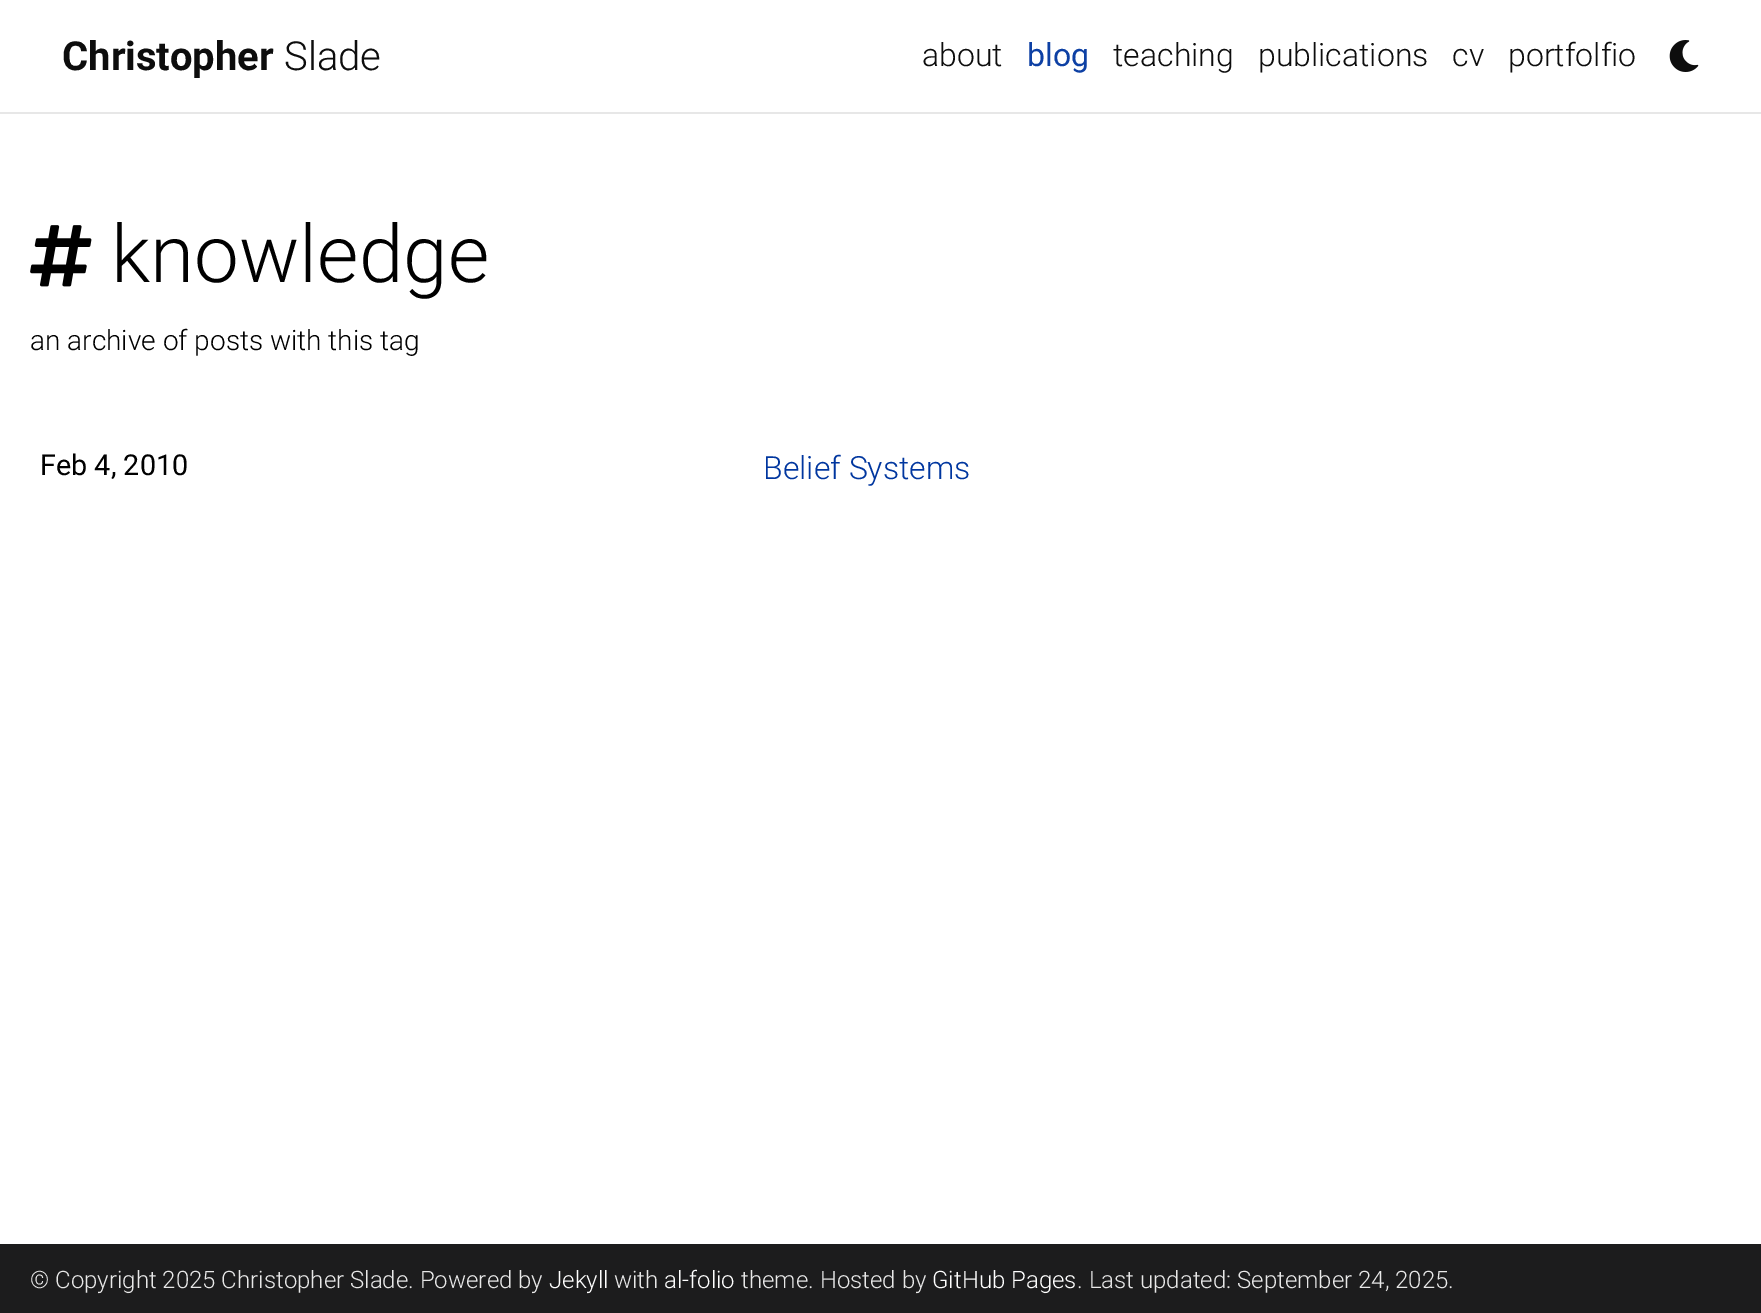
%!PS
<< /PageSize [1761 1313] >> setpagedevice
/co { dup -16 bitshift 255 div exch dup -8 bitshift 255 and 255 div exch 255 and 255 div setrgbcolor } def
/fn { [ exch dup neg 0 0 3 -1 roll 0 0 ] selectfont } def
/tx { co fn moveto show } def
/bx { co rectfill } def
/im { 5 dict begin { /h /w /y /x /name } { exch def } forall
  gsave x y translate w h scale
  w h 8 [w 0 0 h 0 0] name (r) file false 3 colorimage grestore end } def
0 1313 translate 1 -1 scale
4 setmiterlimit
0 0 1761 1313 16#FFFFFF bx
0 112 1761 2 16#E7E7E7 bx
(media/1.raw) 1669 40 30 32 im
(media/2.raw) 30 225 62 62 im
0 1244 1761 69 16#1C1C1D bx
(Christopher) 62 70 /Roboto-Bold 40 16#0D0D0D tx
(Slade) 284 70 /Roboto-Light 40 16#0D0D0D tx
(about) 922 66 /Roboto-Light 32 16#0D0D0D tx
(blog) 1027 66 /Roboto-Regular 32 16#0D40A4 tx
(teaching) 1113 66 /Roboto-Light 32 16#0D0D0D tx
(publications) 1258 66 /Roboto-Light 32 16#0D0D0D tx
(cv) 1452 66 /Roboto-Light 32 16#0D0D0D tx
(portfolfio) 1508 66 /Roboto-Light 32 16#0D0D0D tx
(knowledge) 111 282 /Roboto-Light 80 16#000000 tx
(an archive of posts with this tag) 30 350 /Roboto-Light 28 16#000000 tx
(Feb 4, 2010) 40 475 /Roboto-Regular 28.75 16#000000 tx
(Belief Systems) 763 479 /Roboto-Light 32 16#00369F tx
(© Copyright 2025 Christopher Slade. Powered by) 30 1288 /Roboto-Light 24 16#E8E8E8 tx
(Jekyll) 549 1288 /Roboto-Light 24 16#FFFFFF tx
(with) 614 1288 /Roboto-Light 24 16#E8E8E8 tx
(al-folio) 664 1288 /Roboto-Light 24 16#FFFFFF tx
(theme. Hosted by) 741 1288 /Roboto-Light 24 16#E8E8E8 tx
(GitHub Pages) 932 1288 /Roboto-Light 24 16#FFFFFF tx
(. Last updated: September 24, 2025.) 1077 1288 /Roboto-Light 24 16#E8E8E8 tx
showpage
